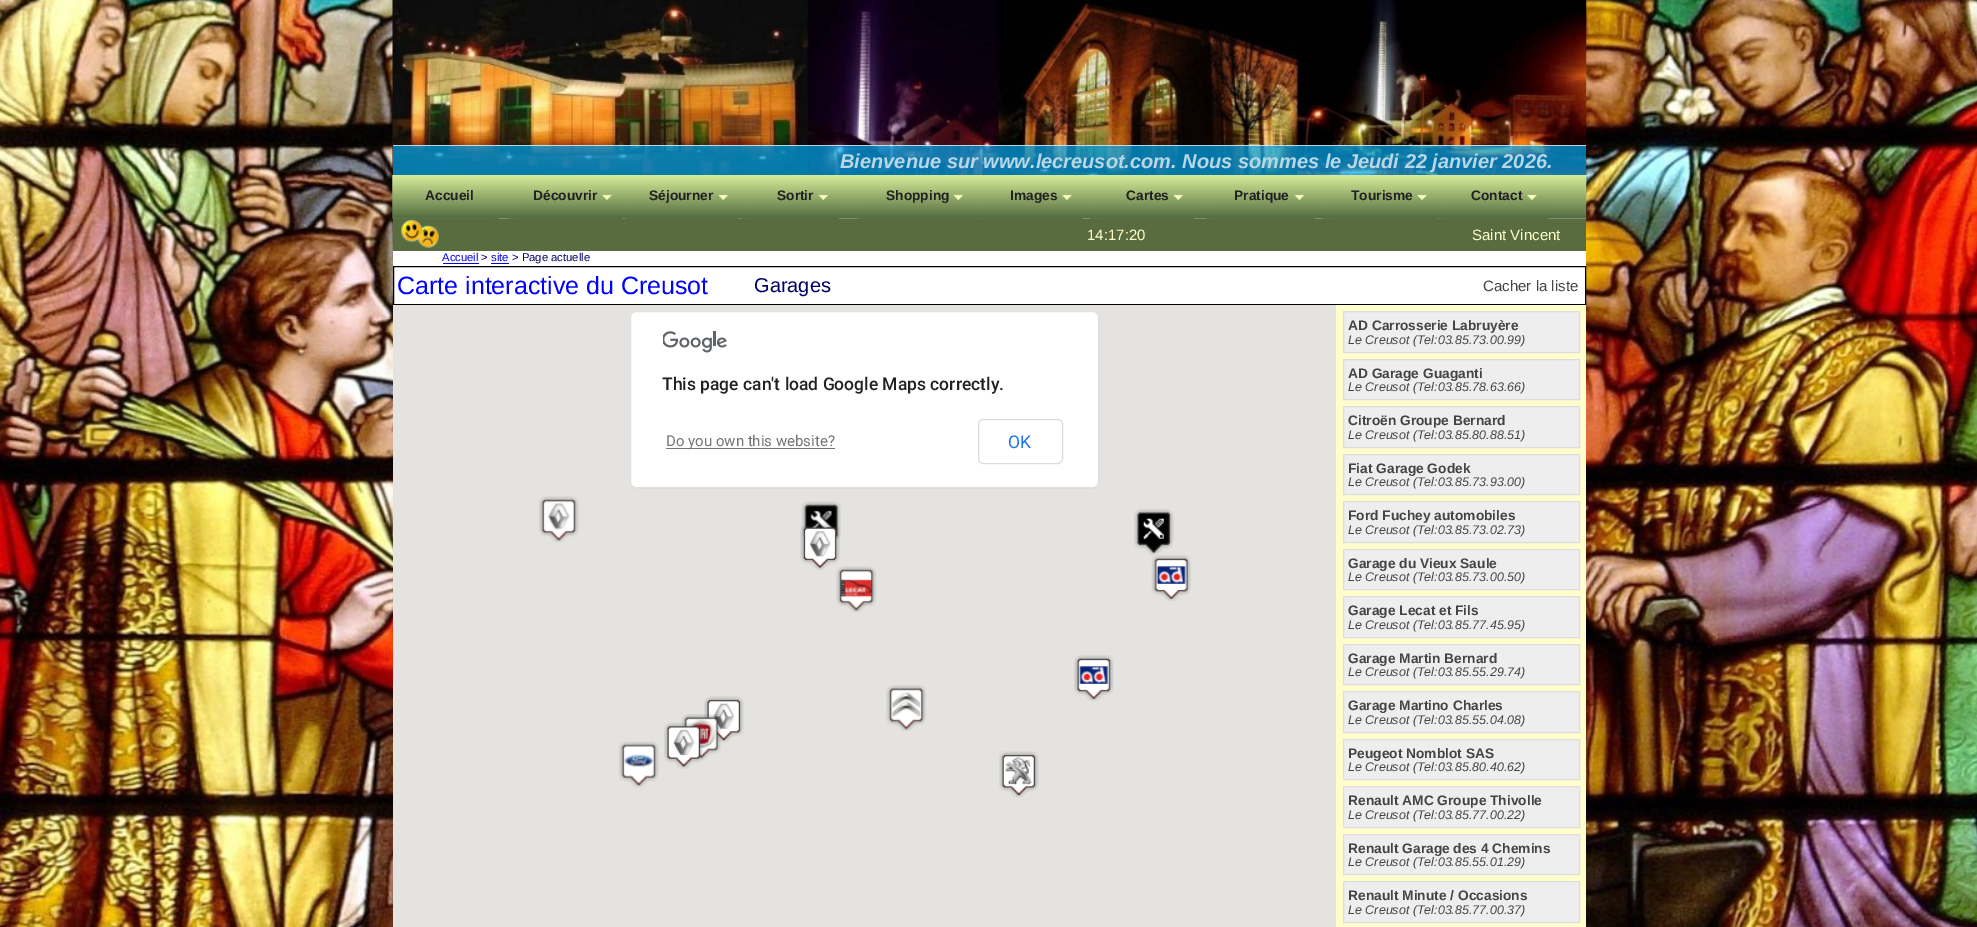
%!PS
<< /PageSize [1977 927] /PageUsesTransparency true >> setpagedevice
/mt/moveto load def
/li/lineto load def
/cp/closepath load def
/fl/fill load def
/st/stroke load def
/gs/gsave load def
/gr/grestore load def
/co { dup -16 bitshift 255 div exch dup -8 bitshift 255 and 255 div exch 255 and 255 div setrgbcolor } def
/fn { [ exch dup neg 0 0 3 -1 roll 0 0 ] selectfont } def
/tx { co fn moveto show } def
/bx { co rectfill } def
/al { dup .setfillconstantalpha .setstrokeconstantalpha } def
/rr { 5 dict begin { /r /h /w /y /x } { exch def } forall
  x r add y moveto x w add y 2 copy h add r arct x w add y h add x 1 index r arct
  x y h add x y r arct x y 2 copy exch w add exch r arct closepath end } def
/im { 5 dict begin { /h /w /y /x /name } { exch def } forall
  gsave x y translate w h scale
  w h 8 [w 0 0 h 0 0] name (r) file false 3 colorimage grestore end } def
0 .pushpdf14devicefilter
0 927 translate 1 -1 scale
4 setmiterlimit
0 0 1977 927 16#FFFFFF bx
(media/1.raw) 0 0 1977 927 im
393 218 1193 86 16#FFFFFF bx
(media/2.raw) 392 0 1195 175 im
0.7 al
393 145 1193 30 16#00A7EE bx
393 145 1193 1 16#FFFFFF bx
1 al
(media/3.raw) 392 175 1195 44 im
(media/4.raw) 392 175 107 44 im
(media/5.raw) 489 218 10 1 im
(media/6.raw) 508 218 115 1 im
(media/7.raw) 521 194 102 25 im
(media/8.raw) 625 218 114 1 im
(media/9.raw) 637 194 102 25 im
(media/10.raw) 741 218 98 1 im
(media/11.raw) 754 194 85 25 im
(media/12.raw) 857 218 117 1 im
(media/13.raw) 870 194 104 25 im
(media/14.raw) 974 218 109 1 im
(media/15.raw) 986 194 97 25 im
(media/16.raw) 1090 218 104 1 im
(media/17.raw) 1102 194 92 25 im
(media/18.raw) 1206 218 109 1 im
(media/19.raw) 1219 194 96 25 im
(media/20.raw) 1322 218 116 1 im
(media/21.raw) 1335 194 103 25 im
(media/22.raw) 1438 218 110 1 im
(media/23.raw) 1451 194 97 25 im
393 219 1193 32 16#586C40 bx
(media/24.raw) 401 219 38 29 im
443 263 36 1 16#0000EE bx
491 263 18 1 16#0000EE bx
16#000000 co
393.5 266.5 1192 38 rectstroke
393 305 943 622 16#E5E3DF bx
(media/25.raw) 539 496 40 47 im
(media/26.raw) 801 501 40 40 im
(media/27.raw) 1134 509 40 46 im
(media/28.raw) 800 524 40 46 im
(media/29.raw) 836 566 40 47 im
(media/30.raw) 1151 555 40 46 im
(media/31.raw) 1074 655 40 46 im
(media/33.raw) 704 696 40 47 im
(media/32.raw) 681 714 40 46 im
(media/34.raw) 886 685 40 46 im
(media/35.raw) 619 741 40 47 im
(media/36.raw) 664 722 40 47 im
(media/37.raw) 999 751 40 47 im
16#FFFFFF co
630 311 469 177 6 rr fl
0.12 al
16#000000 co
630.5 311.5 468 176 5.5 rr st
1 al
(media/38.raw) 663 331 64 22 im
666 448 169 1 16#757575 bx
16#DADCE0 co
978.5 419.5 84 44 4.5 rr st
1336 305 250 622 16#FFFFCC bx
16#EEEEEE co
1343.5 311.5 mt 1579.5 311.5 li 1579.5 352.5 li 1343.5 352.5 li cp gs fl gr
16#DDDDDD co
st
16#EEEEEE co
1343.5 359.5 mt 1579.5 359.5 li 1579.5 399.5 li 1343.5 399.5 li cp gs fl gr
16#DDDDDD co
st
16#EEEEEE co
1343.5 406.5 mt 1579.5 406.5 li 1579.5 447.5 li 1343.5 447.5 li cp gs fl gr
16#DDDDDD co
st
16#EEEEEE co
1343.5 454.5 mt 1579.5 454.5 li 1579.5 494.5 li 1343.5 494.5 li cp gs fl gr
16#DDDDDD co
st
16#EEEEEE co
1343.5 501.5 mt 1579.5 501.5 li 1579.5 542.5 li 1343.5 542.5 li cp gs fl gr
16#DDDDDD co
st
16#EEEEEE co
1343.5 549.5 mt 1579.5 549.5 li 1579.5 589.5 li 1343.5 589.5 li cp gs fl gr
16#DDDDDD co
st
16#EEEEEE co
1343.5 596.5 mt 1579.5 596.5 li 1579.5 637.5 li 1343.5 637.5 li cp gs fl gr
16#DDDDDD co
st
16#EEEEEE co
1343.5 644.5 mt 1579.5 644.5 li 1579.5 684.5 li 1343.5 684.5 li cp gs fl gr
16#DDDDDD co
st
16#EEEEEE co
1343.5 691.5 mt 1579.5 691.5 li 1579.5 732.5 li 1343.5 732.5 li cp gs fl gr
16#DDDDDD co
st
16#EEEEEE co
1343.5 739.5 mt 1579.5 739.5 li 1579.5 779.5 li 1343.5 779.5 li cp gs fl gr
16#DDDDDD co
st
16#EEEEEE co
1343.5 786.5 mt 1579.5 786.5 li 1579.5 827.5 li 1343.5 827.5 li cp gs fl gr
16#DDDDDD co
st
16#EEEEEE co
1343.5 834.5 mt 1579.5 834.5 li 1579.5 874.5 li 1343.5 874.5 li cp gs fl gr
16#DDDDDD co
st
16#EEEEEE co
1343.5 881.5 mt 1579.5 881.5 li 1579.5 922.5 li 1343.5 922.5 li cp gs fl gr
16#DDDDDD co
st
(Bienvenue sur www.lecreusot.com. Nous sommes le Jeudi 22 janvier 2026.) 840 168 /LiberationSans-BoldItalic 20 16#B8D7E6 tx
(Accueil) 425 200 /LiberationSans-Bold 13.75 16#212121 tx
(Découvrir) 533 200 /LiberationSans-Bold 13.75 16#212121 tx
(Séjourner) 649 200 /LiberationSans-Bold 13.75 16#212121 tx
(Sortir) 777 200 /LiberationSans-Bold 13.75 16#212121 tx
(Shopping) 886 200 /LiberationSans-Bold 13.75 16#212121 tx
(Images) 1010 200 /LiberationSans-Bold 13.75 16#212121 tx
(Cartes) 1126 200 /LiberationSans-Bold 13.75 16#212121 tx
(Pratique) 1234 200 /LiberationSans-Bold 13.75 16#212121 tx
(Tourisme) 1351 200 /LiberationSans-Bold 13.75 16#212121 tx
(Contact) 1471 200 /LiberationSans-Bold 13.75 16#212121 tx
(14:17:20) 1087 240 /LiberationSans-Regular 15 16#FFFFC8 tx
(Saint Vincent) 1472 240 /LiberationSans-Regular 15 16#FFFFC8 tx
(Accueil) 442 261 /LiberationSans-Regular 11.25 16#0000EE tx
(>) 481 261 /LiberationSans-Regular 11.25 16#000066 tx
(site) 491 261 /LiberationSans-Regular 11.25 16#0000EE tx
(> Page actuelle) 512 261 /LiberationSans-Regular 11.25 16#000066 tx
(Carte interactive du Creusot) 397 294 /LiberationSans-Regular 25 16#0000FF tx
(Garages) 754 292 /LiberationSans-Regular 20 16#000066 tx
(Cacher la liste) 1483 291 /LiberationSans-Regular 15 16#444444 tx
(This page can't load Google Maps correctly.) 662 390 /Roboto-Medium 17.5 16#212121 tx
(Do you own this website?) 666 446 /Roboto-Regular 15 16#757575 tx
(OK) 1008 448 /Roboto-Regular 17.5 16#1A73E8 tx
(AD Carrosserie Labruyère) 1348 330 /LiberationSans-Bold 13.75 16#444444 tx
(Le Creusot \(Tel:03.85.73.00.99\)) 1348 344 /LiberationSans-Italic 12.5 16#444444 tx
(AD Garage Guaganti) 1348 378 /LiberationSans-Bold 13.75 16#444444 tx
(Le Creusot \(Tel:03.85.78.63.66\)) 1348 391 /LiberationSans-Italic 12.5 16#444444 tx
(Citroën Groupe Bernard) 1348 425 /LiberationSans-Bold 13.75 16#444444 tx
(Le Creusot \(Tel:03.85.80.88.51\)) 1348 439 /LiberationSans-Italic 12.5 16#444444 tx
(Fiat Garage Godek) 1348 473 /LiberationSans-Bold 13.75 16#444444 tx
(Le Creusot \(Tel:03.85.73.93.00\)) 1348 486 /LiberationSans-Italic 12.5 16#444444 tx
(Ford Fuchey automobiles) 1348 520 /LiberationSans-Bold 13.75 16#444444 tx
(Le Creusot \(Tel:03.85.73.02.73\)) 1348 534 /LiberationSans-Italic 12.5 16#444444 tx
(Garage du Vieux Saule) 1348 568 /LiberationSans-Bold 13.75 16#444444 tx
(Le Creusot \(Tel:03.85.73.00.50\)) 1348 581 /LiberationSans-Italic 12.5 16#444444 tx
(Garage Lecat et Fils) 1348 615 /LiberationSans-Bold 13.75 16#444444 tx
(Le Creusot \(Tel:03.85.77.45.95\)) 1348 629 /LiberationSans-Italic 12.5 16#444444 tx
(Garage Martin Bernard) 1348 663 /LiberationSans-Bold 13.75 16#444444 tx
(Le Creusot \(Tel:03.85.55.29.74\)) 1348 676 /LiberationSans-Italic 12.5 16#444444 tx
(Garage Martino Charles) 1348 710 /LiberationSans-Bold 13.75 16#444444 tx
(Le Creusot \(Tel:03.85.55.04.08\)) 1348 724 /LiberationSans-Italic 12.5 16#444444 tx
(Peugeot Nomblot SAS) 1348 758 /LiberationSans-Bold 13.75 16#444444 tx
(Le Creusot \(Tel:03.85.80.40.62\)) 1348 771 /LiberationSans-Italic 12.5 16#444444 tx
(Renault AMC Groupe Thivolle) 1348 805 /LiberationSans-Bold 13.75 16#444444 tx
(Le Creusot \(Tel:03.85.77.00.22\)) 1348 819 /LiberationSans-Italic 12.5 16#444444 tx
(Renault Garage des 4 Chemins) 1348 853 /LiberationSans-Bold 13.75 16#444444 tx
(Le Creusot \(Tel:03.85.55.01.29\)) 1348 866 /LiberationSans-Italic 12.5 16#444444 tx
(Renault Minute / Occasions) 1348 900 /LiberationSans-Bold 13.75 16#444444 tx
(Le Creusot \(Tel:03.85.77.00.37\)) 1348 914 /LiberationSans-Italic 12.5 16#444444 tx
.poppdf14devicefilter showpage
